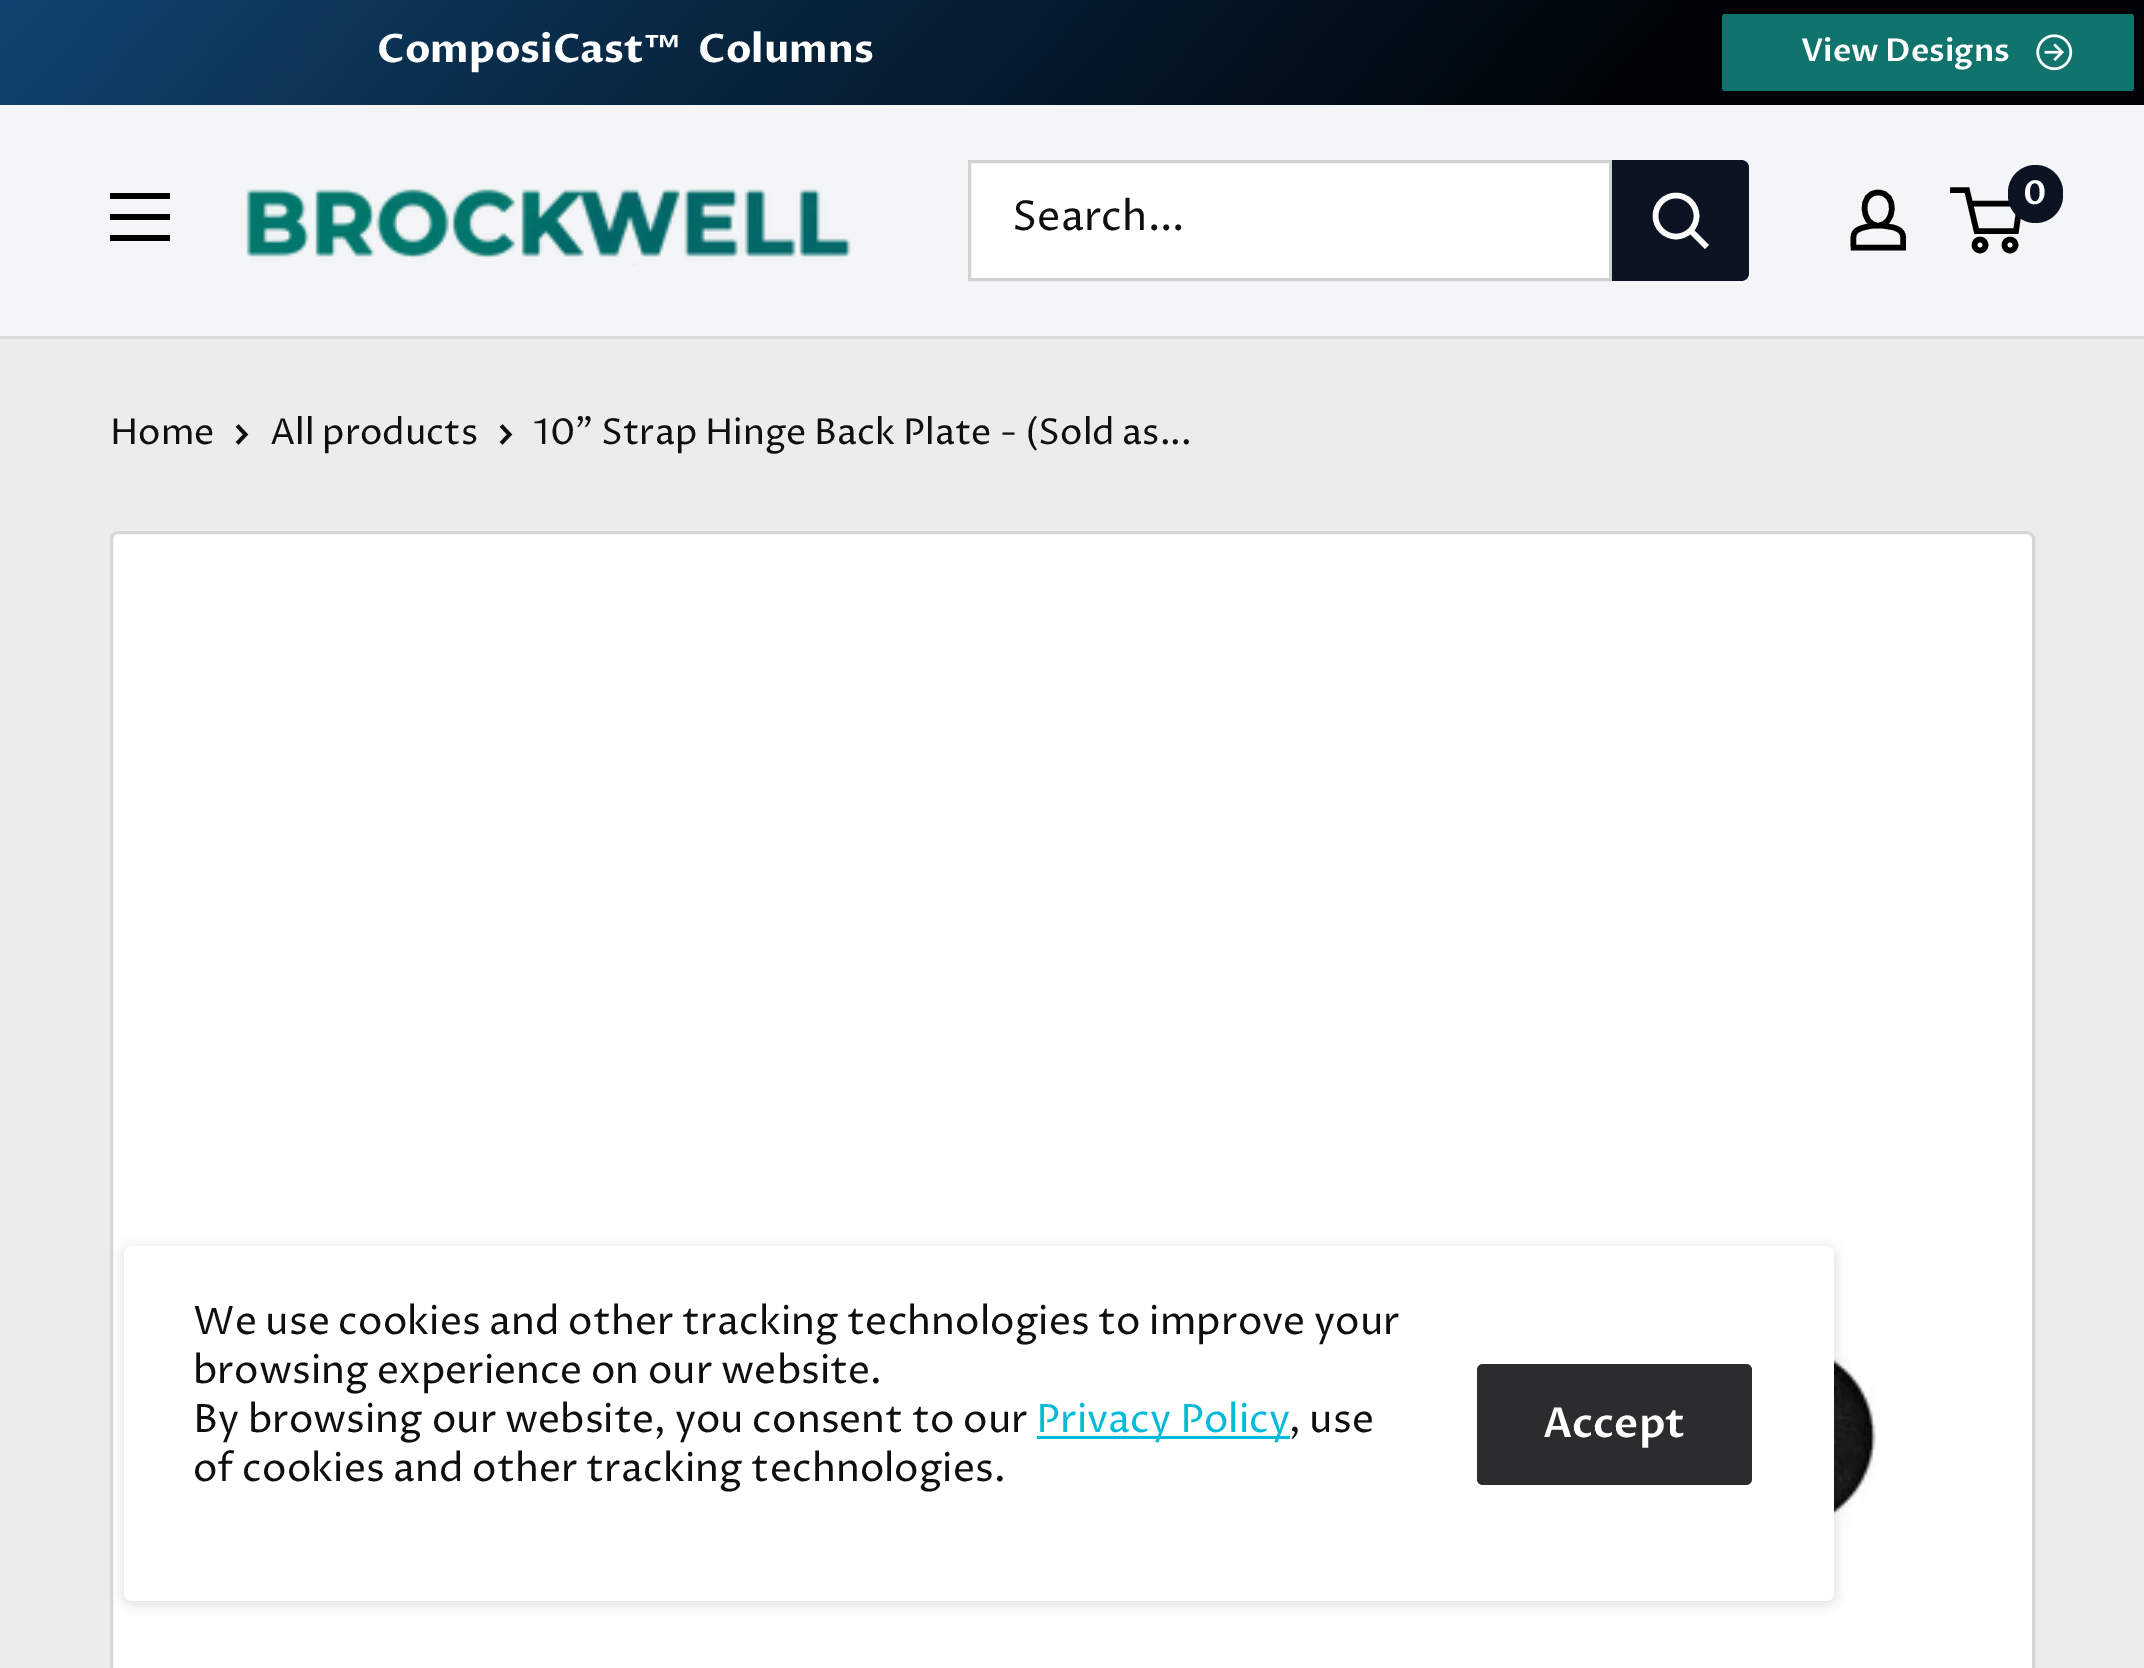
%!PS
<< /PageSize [2144 1668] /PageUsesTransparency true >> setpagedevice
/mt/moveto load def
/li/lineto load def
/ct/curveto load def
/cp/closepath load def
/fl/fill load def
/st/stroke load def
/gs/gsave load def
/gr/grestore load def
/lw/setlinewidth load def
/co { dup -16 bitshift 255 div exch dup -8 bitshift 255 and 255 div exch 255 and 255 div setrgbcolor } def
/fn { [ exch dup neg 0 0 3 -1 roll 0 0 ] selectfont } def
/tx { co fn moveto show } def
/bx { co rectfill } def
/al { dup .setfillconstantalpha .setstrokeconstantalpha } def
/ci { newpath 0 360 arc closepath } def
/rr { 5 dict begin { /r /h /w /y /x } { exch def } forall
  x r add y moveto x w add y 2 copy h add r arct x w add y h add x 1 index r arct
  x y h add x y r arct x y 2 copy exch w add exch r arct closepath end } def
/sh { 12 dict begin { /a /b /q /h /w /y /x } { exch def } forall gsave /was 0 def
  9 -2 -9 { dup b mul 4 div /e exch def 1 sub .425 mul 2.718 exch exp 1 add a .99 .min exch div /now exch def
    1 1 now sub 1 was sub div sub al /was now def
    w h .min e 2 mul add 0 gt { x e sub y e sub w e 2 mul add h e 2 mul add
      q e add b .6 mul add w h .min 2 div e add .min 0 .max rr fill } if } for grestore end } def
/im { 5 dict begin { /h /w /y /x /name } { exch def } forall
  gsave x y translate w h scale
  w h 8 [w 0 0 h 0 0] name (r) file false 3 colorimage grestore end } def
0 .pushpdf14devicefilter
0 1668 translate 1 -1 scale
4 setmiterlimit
0 0 2144 1668 16#ECECEC bx
gs 0 0 mt 2144 0 li 2144 105 li 0 105 li cp clip newpath
<< /ShadingType 2 /ColorSpace /DeviceRGB /Coords [454 -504 1691 609] /Extend [true true] /Function << /FunctionType 3 /Domain [0 1] /Functions [<< /FunctionType 2 /Domain [0 1] /C0 [.067 .267 .439] /C1 [.035 .161 .271] /N 1 >> << /FunctionType 2 /Domain [0 1] /C0 [.035 .161 .271] /C1 [0 .016 .031] /N 1 >> << /FunctionType 2 /Domain [0 1] /C0 [0 .016 .031] /C1 [0 .016 .031] /N 1 >>] /Bounds [.3 .76] /Encode [0 1 0 1 0 1] >> >> shfill gr
16#11746C co
1722 14 412 77 3 rr fl
(media/1.raw) 2036 34 37 37 im
0 105 2144 231 16#F3F5F6 bx
0 336 2144 3 16#DBDBDB bx
16#000000 co
110 235 mt 170 235 li 170 241 li 110 241 li cp 110 193 mt 170 193 li 170 199 li 110 199 li cp 110 214 mt 170 214 li 170 220 li 110 220 li cp eofill
(media/2.raw) 246 189 605 78 im
16#FFFFFF co
968 160 781 121 8 rr fl
16#D1D1D1 co
3 lw
969.5 161.5 641 118 rectstroke
16#0C1423 co
1612 160 mt 1741 160 li 1745.5 160 1749 163.5 1749 168 ct 1749 273 li 1749 277.5 1745.5 281 1741 281 ct 1612 281 li cp fl
16#FFFFFF co
5.5 lw
2 setlinecap
1705 245 mt 1691 231 li st
0 setlinecap
1676 216 20.5 ci st
16#000000 co
1878 225.5 mt 1883.5 225.5 1888.5 226.5 1893.5 227.5 ct 1905.5 231 1903 237 1903 247.5 ct 1853.5 247.5 li 1853.5 236.5 1851 230.5 1864 227.5 ct 1868.5 226 1873.5 225.5 1878 225.5 ct cp 1878 225.5 mt 1861.5 225.5 1858.5 192.5 1878 192.5 ct 1898 192.5 1895 225.5 1878 225.5 ct cp st
1980 245 5.5 ci st
2010 245 5.5 ci st
1970 203.5 mt 2020 203.5 li 2016 231 li 1976.5 231 li 1967 190 li 1950 190 li st
16#0C1423 co
2008 165 55 58 27.5 rr fl
16#0F0F0F co
3.7 lw
2 setlinecap
238.5 427 mt 245.5 434.5 li 238.5 442 li st
502.5 427 mt 509.5 434.5 li 502.5 442 li st
16#FFFFFF co
111.5 532.5 1922 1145 6.5 rr gs fl gr
16#D7D7D7 co
3 lw
0 setlinecap
st
(media/3.raw) 1834 1302 42 279 im
16#000000 co
121 1246 1716 360 11 5.5 .1 sh
16#FFFFFF co
124 1246 1710 355 8 rr fl
1037 1436 253 3 16#00BADB bx
16#2B2C2D co
1477 1364 275 121 6 rr fl
(ComposiCast) 377 62 /ProzaLibre-Bold 39.25 16#FFFFFF tx
(™) 643 62 /LiberationSans-Bold 39.25 16#FFFFFF tx
(Columns) 698 62 /ProzaLibre-Bold 39.25 16#FFFFFF tx
(View Designs) 1801 61 /ProzaLibre-SemiBold 31.5 16#FFFFFF tx
(Search...) 1012 230 /ProzaLibre-Regular 41.25 16#0F0F0F tx
(0) 2023 204 /ProzaLibre-SemiBold 33 16#FFFFFF tx
(Home) 110 444 /ProzaLibre-Regular 35.75 16#0F0F0F tx
(All products) 270 444 /ProzaLibre-Regular 35.75 16#0F0F0F tx
(10" Strap Hinge Back Plate - \(Sold as...) 533 444 /ProzaLibre-Regular 35.75 16#0F0F0F tx
(We use cookies and other tracking technologies to improve your) 193 1334 /ProzaLibre-Regular 39.05 16#0F0F0F tx
(browsing experience on our website.) 193 1383 /ProzaLibre-Regular 39.05 16#0F0F0F tx
(By browsing our website, you consent to our) 193 1432 /ProzaLibre-Regular 39.05 16#0F0F0F tx
(Privacy Policy) 1036 1432 /ProzaLibre-Regular 39.05 16#00BADB tx
(, use) 1289 1432 /ProzaLibre-Regular 39.05 16#0F0F0F tx
(of cookies and other tracking technologies.) 193 1481 /ProzaLibre-Regular 39.05 16#0F0F0F tx
(Accept) 1543 1437 /ProzaLibre-SemiBold 41.25 16#FFFFFF tx
.poppdf14devicefilter showpage
